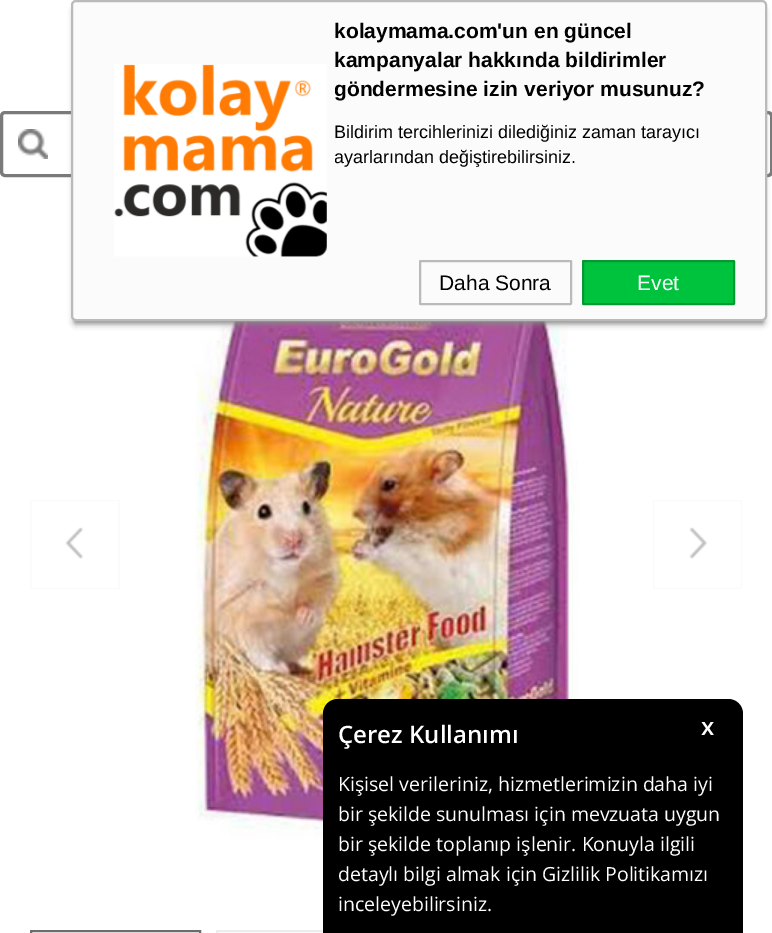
%!PS
<< /PageSize [772 933] /PageUsesTransparency true >> setpagedevice
/mt/moveto load def
/li/lineto load def
/ct/curveto load def
/cp/closepath load def
/fl/fill load def
/st/stroke load def
/gs/gsave load def
/gr/grestore load def
/lw/setlinewidth load def
/co { dup -16 bitshift 255 div exch dup -8 bitshift 255 and 255 div exch 255 and 255 div setrgbcolor } def
/fn { [ exch dup neg 0 0 3 -1 roll 0 0 ] selectfont } def
/tx { co fn moveto show } def
/bx { co rectfill } def
/al { dup .setfillconstantalpha .setstrokeconstantalpha } def
/rr { 5 dict begin { /r /h /w /y /x } { exch def } forall
  x r add y moveto x w add y 2 copy h add r arct x w add y h add x 1 index r arct
  x y h add x y r arct x y 2 copy exch w add exch r arct closepath end } def
/sh { 12 dict begin { /a /b /q /h /w /y /x } { exch def } forall gsave /was 0 def
  9 -2 -9 { dup b mul 4 div /e exch def 1 sub .425 mul 2.718 exch exp 1 add a .99 .min exch div /now exch def
    1 1 now sub 1 was sub div sub al /was now def
    w h .min e 2 mul add 0 gt { x e sub y e sub w e 2 mul add h e 2 mul add
      q e add b .6 mul add w h .min 2 div e add .min 0 .max rr fill } if } for grestore end } def
/im { 5 dict begin { /h /w /y /x /name } { exch def } forall
  gsave x y translate w h scale
  w h 8 [w 0 0 h 0 0] name (r) file false 3 colorimage grestore end } def
0 .pushpdf14devicefilter
0 933 translate 1 -1 scale
4 setmiterlimit
0 0 772 933 16#FFFFFF bx
16#7A7A7A co
3 lw
1.5 112.5 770 63 3.5 rr st
(media/3.raw) 195 321 384 522 im
16#888888 co
74 9 690 315 1.5 3 1 sh
16#FBFBFB co
72 1 694 319 4 rr gs fl gr
16#BABABA co
2 lw
st
(media/1.raw) 114 64 213 193 im
420 261 151 43 .5 rr st
16#00C33D co
583 261 151 43 .5 rr gs fl gr
16#059833 co
st
(media/2.raw) 18 129 30 30 im
(media/4.raw) 30 500 90 89 im
(media/5.raw) 653 500 89 89 im
16#6C6C6C co
31 931 169 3 rectstroke
16#ECECEC co
217 931 169 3 rectstroke
16#000000 co
338 699 mt 728 699 li 736.5 699 743 705.5 743 714 ct 743 933 li 323 933 li 323 714 li 323 705.5 329.5 699 338 699 ct cp fl
(kolaymama.com'un en güncel) 334 38 /LiberationSans-Bold 21 16#000000 tx
(kampanyalar hakkında bildirimler) 334 67 /LiberationSans-Bold 21 16#000000 tx
gs
335 17 400 88 rectclip
(göndermesine izin veriyor musunuz?) 334 96 /LiberationSans-Bold 21 16#000000 tx
gr
(Bildirim tercihlerinizi dilediğiniz zaman tarayıcı) 334 138 /LiberationSans-Regular 18 16#000000 tx
gs
335 120 400 50 rectclip
(ayarlarından değiştirebilirsiniz.) 334 163 /LiberationSans-Regular 18 16#000000 tx
gr
(Daha Sonra) 439 290 /LiberationSans-Regular 21 16#000000 tx
(Evet) 637 290 /LiberationSans-Regular 21 16#FFFFFF tx
(Çerez Kullanımı) 338 743 /OpenSans-SemiBold 24 16#FFFFFF tx
(x) 701 735 /OpenSans-SemiBold 24 16#FFFFFF tx
(Kişisel verileriniz, hizmetlerimizin daha iyi) 338 791 /OpenSans-Regular 19.5 16#FFFFFF tx
(bir şekilde sunulması için mevzuata uygun) 338 821 /OpenSans-Regular 19.5 16#FFFFFF tx
(bir şekilde toplanıp işlenir. Konuyla ilgili) 338 851 /OpenSans-Regular 19.5 16#FFFFFF tx
(detaylı bilgi almak için Gizlilik Politikamızı) 338 881 /OpenSans-Regular 19.5 16#FFFFFF tx
(inceleyebilirsiniz.) 338 911 /OpenSans-Regular 19.5 16#FFFFFF tx
.poppdf14devicefilter showpage
